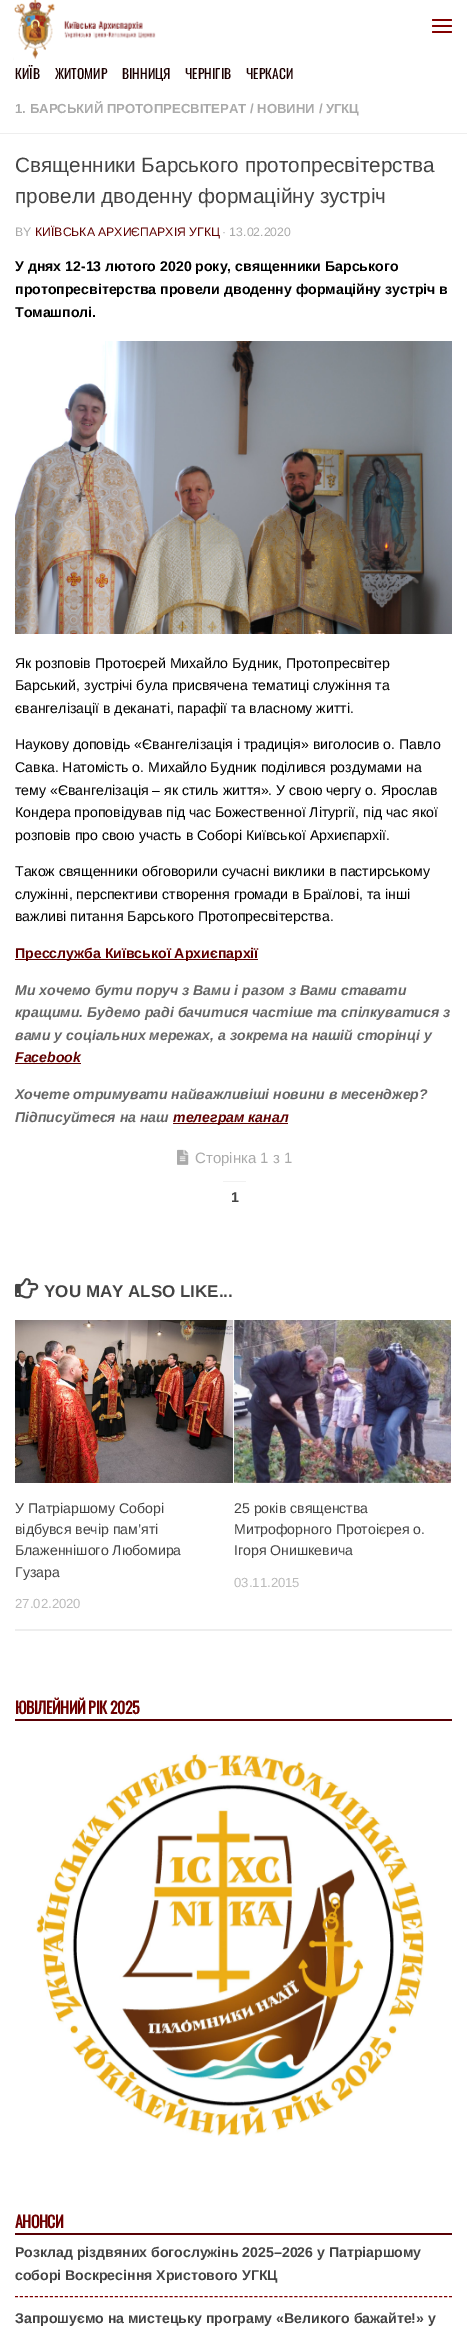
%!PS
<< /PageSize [467 2327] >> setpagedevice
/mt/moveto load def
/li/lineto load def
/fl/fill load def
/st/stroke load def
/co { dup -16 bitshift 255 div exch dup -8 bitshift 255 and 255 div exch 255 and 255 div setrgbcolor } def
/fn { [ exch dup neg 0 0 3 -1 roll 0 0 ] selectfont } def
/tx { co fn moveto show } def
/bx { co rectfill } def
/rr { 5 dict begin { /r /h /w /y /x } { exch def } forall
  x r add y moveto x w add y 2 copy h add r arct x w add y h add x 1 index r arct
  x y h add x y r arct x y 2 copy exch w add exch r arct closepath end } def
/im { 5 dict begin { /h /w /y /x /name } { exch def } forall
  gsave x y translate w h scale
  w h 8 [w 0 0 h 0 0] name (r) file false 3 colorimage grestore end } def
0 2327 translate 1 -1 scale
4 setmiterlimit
0 0 467 2327 16#FFFFFF bx
(media/1.raw) 13 0 143 60 im
16#840000 co
432 19 20 2 1 rr fl
432 25 20 2 1 rr fl
432 31 20 2 1 rr fl
0 133 467 1 16#EEEEEE bx
(media/2.raw) 15 341 437 293 im
15 959 243 1 16#600000 bx
15 1063 66 1 16#600000 bx
173 1123 115 1 16#600000 bx
(media/3.raw) 177 1149 12 16 im
223 1181 23 1 16#F1F1F1 bx
(media/4.raw) 15 1278 24 21 im
15 1629 437 2 16#EEEEEE bx
(media/5.raw) 15 1320 218 163 im
(media/6.raw) 234 1320 217 163 im
15 1719 437 2 16#590004 bx
(media/7.raw) 36 1752 388 385 im
15 2233 437 2 16#590004 bx
16#7E0000 co
[3 1.99] 0 setdash
15 2296.5 mt 452 2296.5 li st
(КИЇВ) 15 79 /Oswald-Regular 13.5 16#1A0000 tx
(ЖИТОМИР) 55 79 /Oswald-Regular 13.5 16#1A0000 tx
(ВІННИЦЯ) 122 79 /Oswald-Regular 13.5 16#1A0000 tx
(ЧЕРНІГІВ) 185 79 /Oswald-Regular 13.5 16#1A0000 tx
(ЧЕРКАСИ) 246 79 /Oswald-Regular 13.5 16#1A0000 tx
(1. БАРСЬКИЙ ПРОТОПРЕСВІТЕРАТ / НОВИНИ / УГКЦ) 15 113 /LiberationSans-Bold 13.15 16#AAAAAA tx
(Священники Барського протопресвітерства) 15 172 /LiberationSans-Regular 20.7 16#444444 tx
(провели дводенну формаційну зустріч) 15 203 /LiberationSans-Regular 20.7 16#444444 tx
(BY) 15 236 /LiberationSans-Regular 12.25 16#AAAAAA tx
(КИЇВСЬКА АРХИЄПАРХІЯ УГКЦ) 35 236 /LiberationSans-Regular 12.25 16#600000 tx
(· 13.02.2020) 222 236 /LiberationSans-Regular 12.25 16#AAAAAA tx
(У днях 12-13 лютого 2020 року, священники Барського) 15 271 /LiberationSans-Bold 14.1 16#000000 tx
(протопресвітерства провели дводенну формаційну зустріч в) 15 294 /LiberationSans-Bold 14.1 16#000000 tx
(Томашполі.) 15 317 /LiberationSans-Bold 14.1 16#000000 tx
(Як розповів Протоєрей Михайло Будник, Протопресвітер) 15 668 /LiberationSans-Regular 14.1 16#000000 tx
(Барський, зустрічі була присвячена тематиці служіння та) 15 690 /LiberationSans-Regular 14.1 16#000000 tx
(євангелізації в деканаті, парафії та власному житті.) 15 713 /LiberationSans-Regular 14.1 16#000000 tx
(Наукову доповідь «Євангелізація і традиція» виголосив о. Павло) 15 749 /LiberationSans-Regular 14.1 16#000000 tx
(Савка. Натомість о. Михайло Будник поділився роздумами на) 15 772 /LiberationSans-Regular 14.1 16#000000 tx
(тему «Євангелізація – як стиль життя». У свою чергу о. Ярослав) 15 795 /LiberationSans-Regular 14.1 16#000000 tx
(Кондера проповідував під час Божественної Літургії, під час якої) 15 817 /LiberationSans-Regular 14.1 16#000000 tx
(розповів про свою участь в Соборі Київської Архиєпархії.) 15 840 /LiberationSans-Regular 14.1 16#000000 tx
(Також священники обговорили сучасні виклики в пастирському) 15 876 /LiberationSans-Regular 14.1 16#000000 tx
(служінні, перспективи створення громади в Браїлові, та інші) 15 899 /LiberationSans-Regular 14.1 16#000000 tx
(важливі питання Барського Протопресвітерства.) 15 921 /LiberationSans-Regular 14.1 16#000000 tx
(Пресслужба Київської Архиєпархії) 15 958 /LiberationSans-Bold 14.1 16#600000 tx
(Ми хочемо бути поруч з Вами і разом з Вами ставати) 15 995 /LiberationSans-BoldItalic 14.1 16#666666 tx
(кращими. Будемо раді бачитися частіше та спілкуватися з) 15 1017 /LiberationSans-BoldItalic 14.1 16#666666 tx
(вами у соціальних мережах, а зокрема на нашій сторінці у) 15 1040 /LiberationSans-BoldItalic 14.1 16#666666 tx
(Facebook) 15 1062 /LiberationSans-BoldItalic 14.1 16#600000 tx
(Хочете отримувати найважливіші новини в месенджер?) 15 1099 /LiberationSans-BoldItalic 14.1 16#666666 tx
(Підписуйтеся на наш) 15 1122 /LiberationSans-BoldItalic 14.1 16#666666 tx
(телеграм канал) 173 1122 /LiberationSans-BoldItalic 14.1 16#600000 tx
(Сторінка 1 з 1) 195 1163 /LiberationSans-Regular 15 16#AAAAAA tx
(1) 231 1202 /LiberationSans-Bold 14.1 16#444444 tx
(YOU MAY ALSO LIKE...) 44 1297 /LiberationSans-Bold 17 16#444444 tx
(У Патріаршому Соборі) 15 1513 /LiberationSans-Regular 14.1 16#444444 tx
(відбувся вечір пам’яті) 15 1534 /LiberationSans-Regular 14.1 16#444444 tx
(Блаженнішого Любомира) 15 1555 /LiberationSans-Regular 14.1 16#444444 tx
(Гузара) 15 1577 /LiberationSans-Regular 14.1 16#444444 tx
(27.02.2020) 15 1608 /LiberationSans-Regular 13.15 16#BBBBBB tx
(25 років священства) 234 1513 /LiberationSans-Regular 14.1 16#444444 tx
(Митрофорного Протоієрея о.) 234 1534 /LiberationSans-Regular 14.1 16#444444 tx
(Ігоря Онишкевича) 234 1555 /LiberationSans-Regular 14.1 16#444444 tx
(03.11.2015) 234 1587 /LiberationSans-Regular 13.15 16#BBBBBB tx
/Oswald-Bold 16 fn
16#6E0000 co
15 1714 mt -.5 0 (ЮВІЛЕЙНИЙ РІК 2025) ashow
15 2228 mt -.5 0 (АНОНСИ) ashow
(Розклад різдвяних богослужінь 2025–2026 у Патріаршому) 15 2257 /LiberationSans-Bold 14.1 16#444444 tx
(соборі Воскресіння Христового УГКЦ) 15 2280 /LiberationSans-Bold 14.1 16#444444 tx
(Запрошуємо на мистецьку програму «Великого бажайте!» у) 15 2323 /LiberationSans-Bold 14.1 16#444444 tx
showpage
